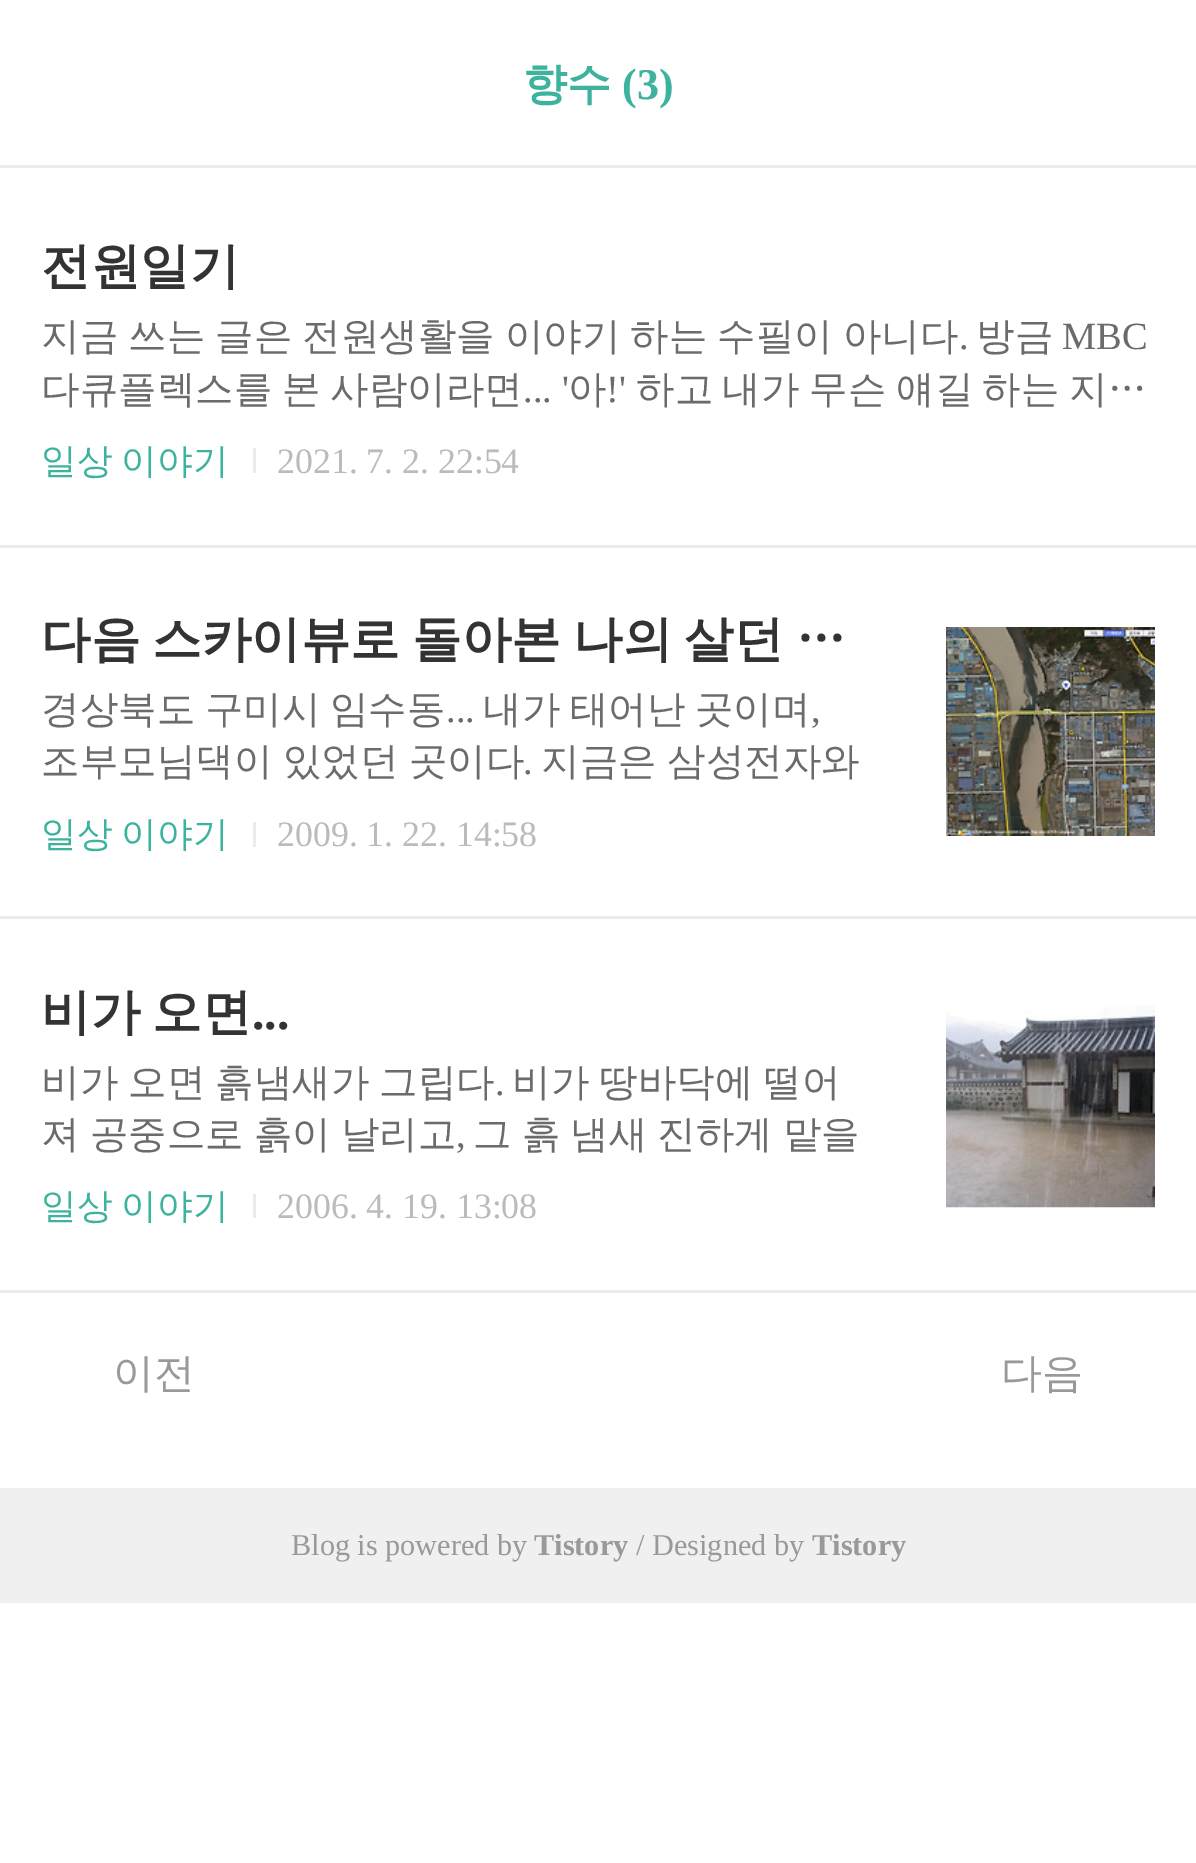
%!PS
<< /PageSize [1196 1863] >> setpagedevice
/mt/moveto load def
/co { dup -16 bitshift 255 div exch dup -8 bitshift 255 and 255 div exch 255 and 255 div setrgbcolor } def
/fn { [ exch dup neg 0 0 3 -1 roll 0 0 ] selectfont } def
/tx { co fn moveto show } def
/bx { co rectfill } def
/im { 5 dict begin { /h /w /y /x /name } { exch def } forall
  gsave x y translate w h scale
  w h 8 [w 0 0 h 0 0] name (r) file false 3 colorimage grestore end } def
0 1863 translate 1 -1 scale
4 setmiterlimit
0 0 1196 1863 16#FFFFFF bx
0 165 1196 3 16#EBEBEB bx
0 545 1196 3 16#EBEBEB bx
253 448 3 25 16#EBEBEB bx
0 916 1196 3 16#EBEBEB bx
(media/1.raw) 946 627 209 209 im
253 822 3 25 16#EBEBEB bx
0 1290 1196 3 16#EBEBEB bx
(media/2.raw) 946 1005 209 203 im
253 1194 3 24 16#EBEBEB bx
0 1488 1196 115 16#F0F0F0 bx
(향수) 523 99 /WenQuanYiZenHei-Bold 44 16#3DB39E tx
(\(3\)) 622 99 /LiberationSerif-Bold 44 16#3DB39E tx
(전원일기) 41 283 /WenQuanYiZenHei-Bold 49.5 16#333333 tx
/WenQuanYiZenHei-Medium 38.5 fn
16#6B6B6B co
41 349 mt -1.5 0 32 (지금 쓰는 글은 전원생활을 이야기 하는 수필이 아니다) widthshow
(.) 959 349 /LiberationSerif-Regular 38.5 16#6B6B6B tx
(방금) 976 349 /WenQuanYiZenHei-Medium 38.5 16#6B6B6B tx
(MBC) 1062 349 /LiberationSerif-Regular 38.5 16#6B6B6B tx
(다큐플렉스를) 41 402 /WenQuanYiZenHei-Medium 38.5 16#6B6B6B tx
(본) 282 402 /WenQuanYiZenHei-Medium 38.5 16#6B6B6B tx
(사람이라면) 330 402 /WenQuanYiZenHei-Medium 38.5 16#6B6B6B tx
(... ') 523 402 /LiberationSerif-Regular 38.5 16#6B6B6B tx
(아) 568 402 /WenQuanYiZenHei-Medium 38.5 16#6B6B6B tx
(!') 606 402 /LiberationSerif-Regular 38.5 16#6B6B6B tx
(하고) 636 402 /WenQuanYiZenHei-Medium 38.5 16#6B6B6B tx
(내가) 722 402 /WenQuanYiZenHei-Medium 38.5 16#6B6B6B tx
(무슨) 809 402 /WenQuanYiZenHei-Medium 38.5 16#6B6B6B tx
(얘길) 896 402 /WenQuanYiZenHei-Medium 38.5 16#6B6B6B tx
(하는) 982 402 /WenQuanYiZenHei-Medium 38.5 16#6B6B6B tx
(지…) 1069 402 /WenQuanYiZenHei-Medium 38.5 16#6B6B6B tx
/WenQuanYiZenHei-Medium 35.75 fn
16#3DB39E co
41 473 mt -2 0 32 (일상 이야기) widthshow
(2021. 7. 2. 22:54) 277 473 /LiberationSerif-Regular 35.75 16#BBBBBB tx
/WenQuanYiZenHei-Bold 49.5 fn
16#333333 co
41 656 mt -2.5 0 32 (다음 스카이뷰로 돌아본 나의 살던 …) widthshow
/WenQuanYiZenHei-Medium 38.5 fn
16#6B6B6B co
41 722 mt -2 0 32 (경상북도 구미시 임수동) widthshow
(...) 446 722 /LiberationSerif-Regular 38.5 16#6B6B6B tx
/WenQuanYiZenHei-Medium 38.5 fn
483 722 mt -2 0 32 (내가 태어난 곳이며) widthshow
(,) 811 722 /LiberationSerif-Regular 38.5 16#6B6B6B tx
/WenQuanYiZenHei-Medium 38.5 fn
41 774 mt -1 0 32 (조부모님댁이 있었던 곳이다) widthshow
(.) 523 774 /LiberationSerif-Regular 38.5 16#6B6B6B tx
/WenQuanYiZenHei-Medium 38.5 fn
541 774 mt -1 0 32 (지금은 삼성전자와) widthshow
/WenQuanYiZenHei-Medium 35.75 fn
16#3DB39E co
41 846 mt -2 0 32 (일상 이야기) widthshow
(2009. 1. 22. 14:58) 277 846 /LiberationSerif-Regular 35.75 16#BBBBBB tx
/WenQuanYiZenHei-Bold 49.5 fn
16#333333 co
41 1029 mt -2.5 0 32 (비가 오면) widthshow
(...) 252 1029 /LiberationSerif-Bold 49.5 16#333333 tx
/WenQuanYiZenHei-Medium 38.5 fn
16#6B6B6B co
41 1095 mt -1.5 0 32 (비가 오면 흙냄새가 그립다) widthshow
(.) 495 1095 /LiberationSerif-Regular 38.5 16#6B6B6B tx
/WenQuanYiZenHei-Medium 38.5 fn
512 1095 mt -1.5 0 32 (비가 땅바닥에 떨어) widthshow
41 1147 mt -1.5 0 32 (져 공중으로 흙이 날리고) widthshow
(,) 456 1147 /LiberationSerif-Regular 38.5 16#6B6B6B tx
/WenQuanYiZenHei-Medium 38.5 fn
473 1147 mt -1.5 0 32 (그 흙 냄새 진하게 맡을) widthshow
/WenQuanYiZenHei-Medium 35.75 fn
16#3DB39E co
41 1218 mt -2 0 32 (일상 이야기) widthshow
(2006. 4. 19. 13:08) 277 1218 /LiberationSerif-Regular 35.75 16#BBBBBB tx
(이전) 113 1387 /WenQuanYiZenHei-Medium 41 16#999999 tx
(다음) 1001 1387 /WenQuanYiZenHei-Medium 41 16#999999 tx
(Blog is powered by) 291 1555 /LiberationSerif-Regular 30.25 16#999999 tx
(Tistory) 534 1555 /LiberationSerif-Bold 30.25 16#999999 tx
(/ Designed by) 636 1555 /LiberationSerif-Regular 30.25 16#999999 tx
(Tistory) 812 1555 /LiberationSerif-Bold 30.25 16#999999 tx
showpage
